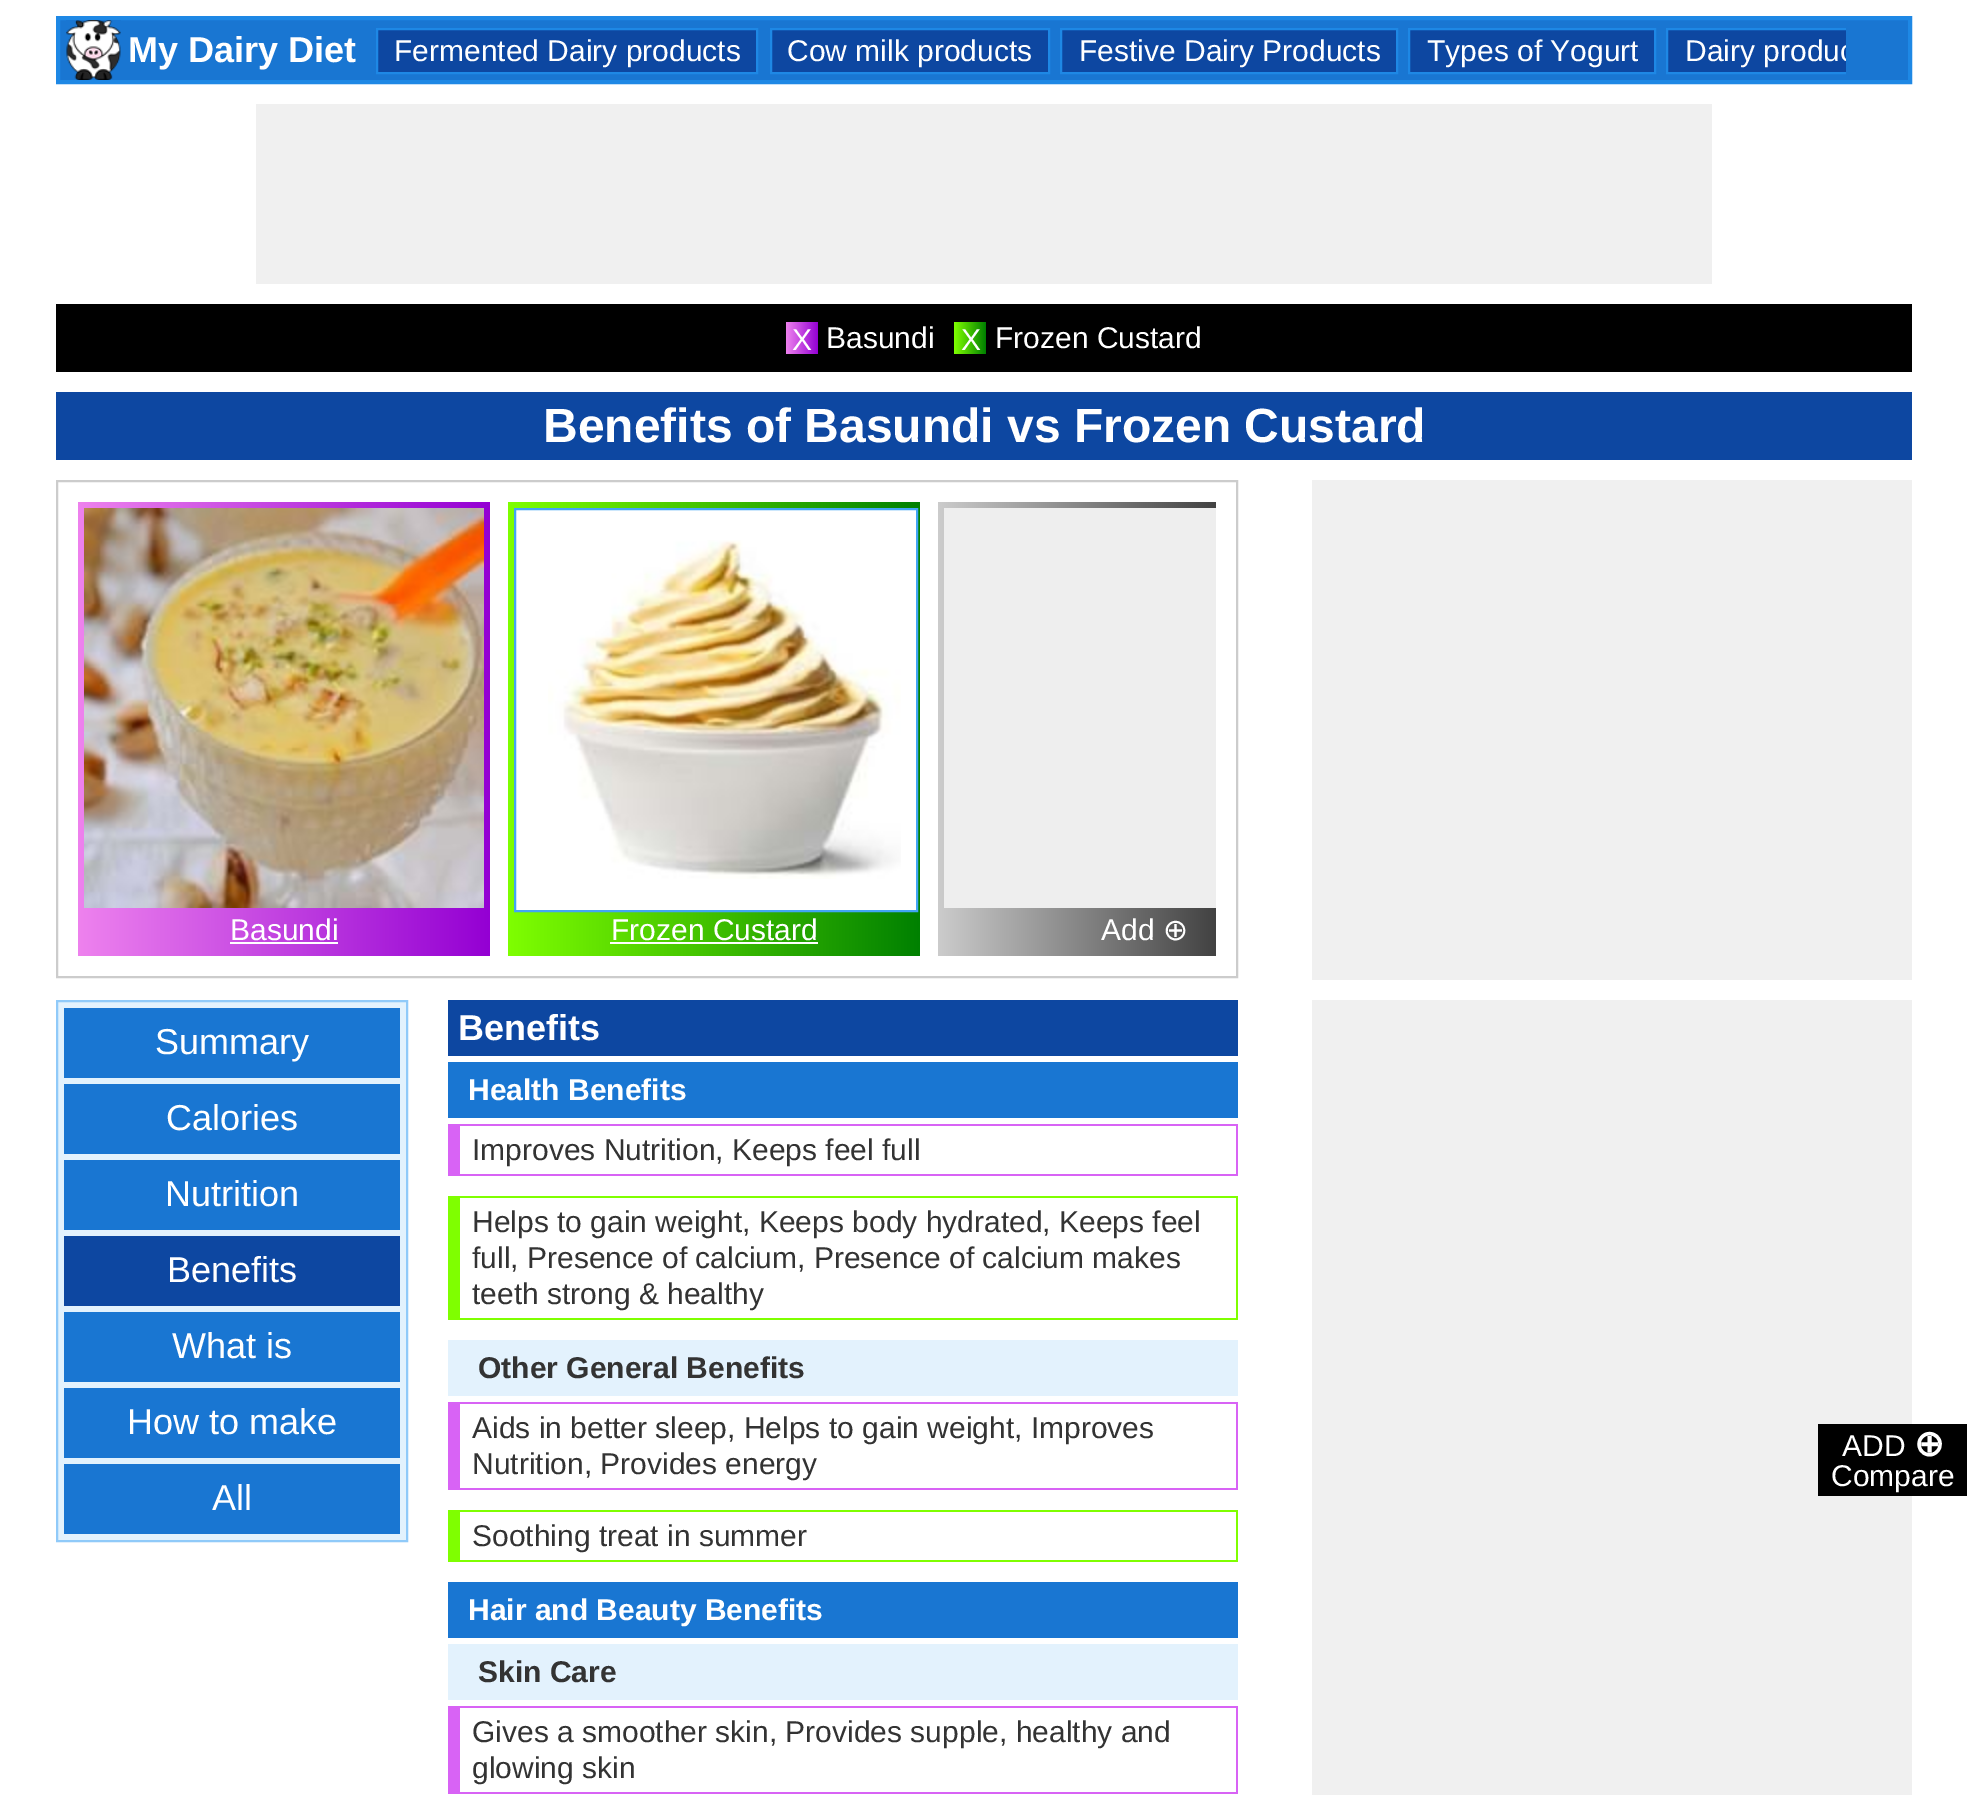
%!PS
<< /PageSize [1967 1795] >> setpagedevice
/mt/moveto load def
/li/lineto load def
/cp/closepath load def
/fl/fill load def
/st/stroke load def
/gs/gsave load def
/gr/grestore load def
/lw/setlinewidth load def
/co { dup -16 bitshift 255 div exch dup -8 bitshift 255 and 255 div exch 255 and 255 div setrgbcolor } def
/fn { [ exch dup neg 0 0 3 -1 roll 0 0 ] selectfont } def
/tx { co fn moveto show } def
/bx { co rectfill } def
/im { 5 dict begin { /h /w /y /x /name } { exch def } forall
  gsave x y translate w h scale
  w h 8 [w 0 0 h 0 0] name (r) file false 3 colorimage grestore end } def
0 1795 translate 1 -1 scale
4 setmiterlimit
0 0 1967 1795 16#FFFFFF bx
16#1976D2 co
58 18 mt 1910 18 li 1910 82 li 58 82 li cp gs fl gr
16#1E88E5 co
4 lw
st
(media/1.raw) 66 20 55 60 im
16#0D47A1 co
377 29 mt 757 29 li 757 73 li 377 73 li cp gs fl gr
16#1E88E5 co
2 lw
st
16#0D47A1 co
771 29 mt 1049 29 li 1049 73 li 771 73 li cp gs fl gr
16#1E88E5 co
st
16#0D47A1 co
1061 29 mt 1397 29 li 1397 73 li 1061 73 li cp gs fl gr
16#1E88E5 co
st
16#0D47A1 co
1409 29 mt 1655 29 li 1655 73 li 1409 73 li cp gs fl gr
16#1E88E5 co
st
1668 30 178 42 16#0D47A1 bx
gs
376 22 1470 58 rectclip
16#1E88E5 co
1667 29 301 44 rectstroke
gr
256 104 1456 180 16#F0F0F0 bx
56 304 1856 68 16#000000 bx
gs 786 322 mt 818 322 li 818 354 li 786 354 li cp clip newpath
<< /ShadingType 2 /ColorSpace /DeviceRGB /Coords [786 338 818 338] /Extend [true true] /Function << /FunctionType 2 /Domain [0 1] /C0 [.933 .51 .933] /C1 [.58 0 .827] /N 1 >> >> shfill gr
gs 954 322 mt 986 322 li 986 354 li 954 354 li cp clip newpath
<< /ShadingType 2 /ColorSpace /DeviceRGB /Coords [954 338 986 338] /Extend [true true] /Function << /FunctionType 2 /Domain [0 1] /C0 [.498 1 0] /C1 [0 .502 0] /N 1 >> >> shfill gr
56 392 1856 68 16#0D47A1 bx
16#CCCCCC co
57 481 1180 496 rectstroke
gs 78 502 mt 490 502 li 490 956 li 78 956 li cp clip newpath
<< /ShadingType 2 /ColorSpace /DeviceRGB /Coords [78 729 490 729] /Extend [true true] /Function << /FunctionType 2 /Domain [0 1] /C0 [.933 .51 .933] /C1 [.58 0 .827] /N 1 >> >> shfill gr
(media/2.raw) 84 508 400 400 im
230 942 108 2 16#FFFFFF bx
gs 508 502 mt 920 502 li 920 956 li 508 956 li cp clip newpath
<< /ShadingType 2 /ColorSpace /DeviceRGB /Coords [508 729 920 729] /Extend [true true] /Function << /FunctionType 2 /Domain [0 1] /C0 [.498 1 0] /C1 [0 .502 0] /N 1 >> >> shfill gr
515 509 mt 917 509 li 917 911 li 515 911 li cp gs fl gr
16#42A5F5 co
st
(media/3.raw) 548 540 353 339 im
610 942 208 2 16#FFFFFF bx
gs 938 502 mt 1216 502 li 1216 956 li 938 956 li cp clip newpath
<< /ShadingType 2 /ColorSpace /DeviceRGB /Coords [938 729 1350 729] /Extend [true true] /Function << /FunctionType 2 /Domain [0 1] /C0 [.8 .8 .8] /C1 [0 0 0] /N 1 >> >> shfill gr
944 508 272 400 16#EEEEEE bx
1312 480 600 500 16#F0F0F0 bx
16#E3F2FD co
57 1001 mt 407 1001 li 407 1541 li 57 1541 li cp gs fl gr
16#90CAF9 co
st
64 1008 336 70 16#1976D2 bx
64 1084 336 70 16#1976D2 bx
64 1160 336 70 16#1976D2 bx
64 1236 336 70 16#0D47A1 bx
64 1312 336 70 16#1976D2 bx
64 1388 336 70 16#1976D2 bx
64 1464 336 70 16#1976D2 bx
448 1000 790 56 16#0D47A1 bx
448 1062 790 56 16#1976D2 bx
460 1124 778 2 16#D863F5 bx
1236 1124 2 52 16#D863F5 bx
460 1174 778 2 16#D863F5 bx
448 1124 12 52 16#D863F5 bx
460 1196 778 2 16#7FFF00 bx
1236 1196 2 124 16#7FFF00 bx
460 1318 778 2 16#7FFF00 bx
448 1196 12 124 16#7FFF00 bx
448 1340 790 56 16#E3F2FD bx
460 1402 778 2 16#D863F5 bx
1236 1402 2 88 16#D863F5 bx
460 1488 778 2 16#D863F5 bx
448 1402 12 88 16#D863F5 bx
460 1510 778 2 16#7FFF00 bx
1236 1510 2 52 16#7FFF00 bx
460 1560 778 2 16#7FFF00 bx
448 1510 12 52 16#7FFF00 bx
448 1582 790 56 16#1976D2 bx
448 1644 790 56 16#E3F2FD bx
460 1706 778 2 16#D863F5 bx
1236 1706 2 88 16#D863F5 bx
460 1792 778 2 16#D863F5 bx
448 1706 12 88 16#D863F5 bx
1312 1000 600 795 16#F0F0F0 bx
1818 1424 149 72 16#000000 bx
(My Dairy Diet) 128 62 /LiberationSans-Bold 36 16#FFFFFF tx
(Fermented Dairy products) 394 61 /LiberationSans-Regular 30 16#FFFFFF tx
(Cow milk products) 787 61 /LiberationSans-Regular 30 16#FFFFFF tx
(Festive Dairy Products) 1079 61 /LiberationSans-Regular 30 16#FFFFFF tx
(Types of Yogurt) 1427 61 /LiberationSans-Regular 30 16#FFFFFF tx
gs
376 22 1470 58 rectclip
(Dairy produc) 1685 61 /LiberationSans-Regular 30 16#FFFFFF tx
gr
(X) 792 350 /LiberationSans-Regular 30 16#FFFFFF tx
(Basundi) 826 348 /LiberationSans-Regular 30 16#FFFFFF tx
(X) 961 350 /LiberationSans-Regular 30 16#FFFFFF tx
(Frozen Custard) 995 348 /LiberationSans-Regular 30 16#FFFFFF tx
(Benefits of Basundi vs Frozen Custard) 543 442 /LiberationSans-Bold 48 16#FFFFFF tx
(Basundi) 230 940 /LiberationSans-Regular 30 16#FFFFFF tx
(Frozen Custard) 611 940 /LiberationSans-Regular 30 16#FFFFFF tx
(Add) 1101 940 /LiberationSans-Regular 30 16#FFFFFF tx
(⊕) 1163 940 /DejaVuSans-Regular 30 16#FFFFFF tx
(Summary) 155 1054 /LiberationSans-Regular 36 16#FFFFFF tx
(Calories) 166 1130 /LiberationSans-Regular 36 16#FFFFFF tx
(Nutrition) 165 1206 /LiberationSans-Regular 36 16#FFFFFF tx
(Benefits) 167 1282 /LiberationSans-Regular 36 16#FFFFFF tx
(What is) 172 1358 /LiberationSans-Regular 36 16#FFFFFF tx
(How to make) 127 1434 /LiberationSans-Regular 36 16#FFFFFF tx
(All) 212 1510 /LiberationSans-Regular 36 16#FFFFFF tx
(Benefits) 458 1040 /LiberationSans-Bold 36 16#FFFFFF tx
(Health Benefits) 468 1100 /LiberationSans-Bold 30 16#FFFFFF tx
(Improves Nutrition, Keeps feel full) 472 1160 /LiberationSans-Regular 30 16#333333 tx
(Helps to gain weight, Keeps body hydrated, Keeps feel) 472 1232 /LiberationSans-Regular 30 16#333333 tx
(full, Presence of calcium, Presence of calcium makes) 472 1268 /LiberationSans-Regular 30 16#333333 tx
(teeth strong & healthy) 472 1304 /LiberationSans-Regular 30 16#333333 tx
(Other General Benefits) 478 1378 /LiberationSans-Bold 30 16#333333 tx
(Aids in better sleep, Helps to gain weight, Improves) 472 1438 /LiberationSans-Regular 30 16#333333 tx
(Nutrition, Provides energy) 472 1474 /LiberationSans-Regular 30 16#333333 tx
(Soothing treat in summer) 472 1546 /LiberationSans-Regular 30 16#333333 tx
(Hair and Beauty Benefits) 468 1620 /LiberationSans-Bold 30 16#FFFFFF tx
(Skin Care) 478 1682 /LiberationSans-Bold 30 16#333333 tx
(Gives a smoother skin, Provides supple, healthy and) 472 1742 /LiberationSans-Regular 30 16#333333 tx
(glowing skin) 472 1778 /LiberationSans-Regular 30 16#333333 tx
(ADD) 1842 1456 /LiberationSans-Regular 30 16#FFFFFF tx
(⊕) 1914 1456 /DejaVuSans-Bold 36 16#FFFFFF tx
(Compare) 1831 1486 /LiberationSans-Regular 30 16#FFFFFF tx
showpage
